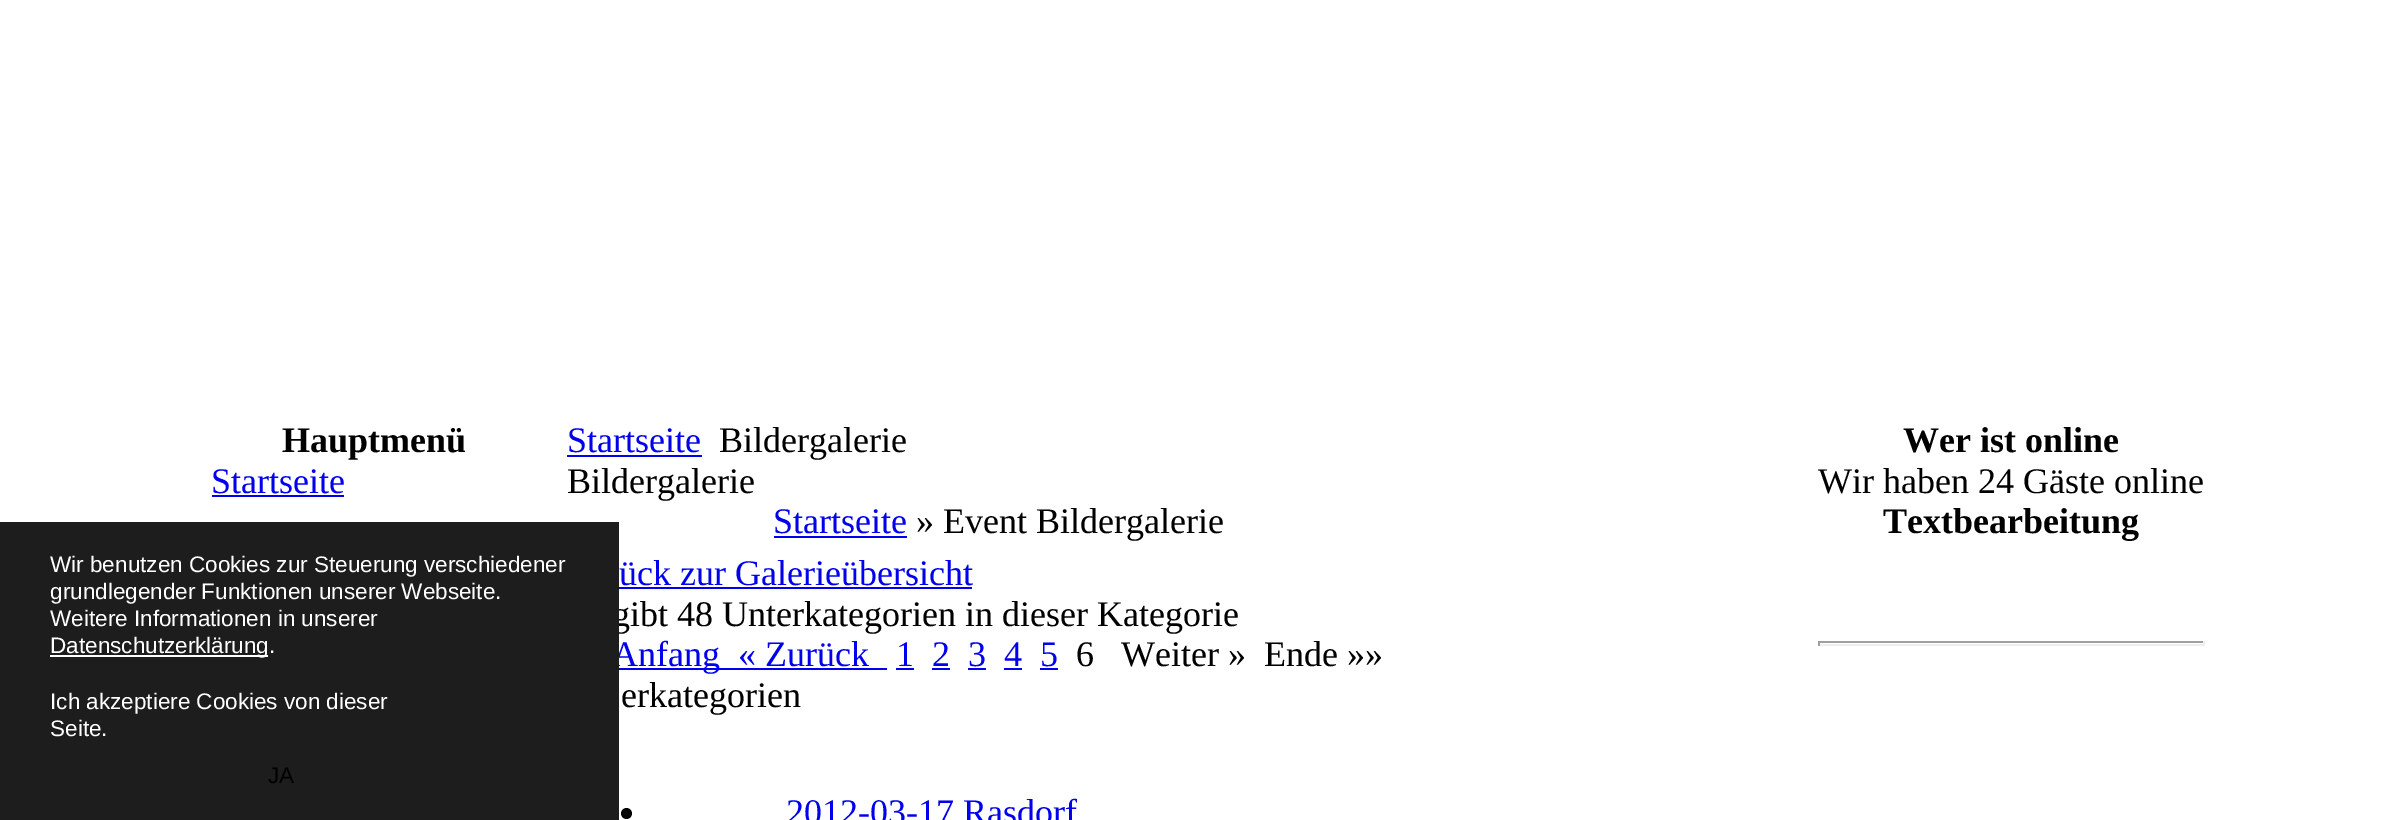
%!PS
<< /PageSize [2384 820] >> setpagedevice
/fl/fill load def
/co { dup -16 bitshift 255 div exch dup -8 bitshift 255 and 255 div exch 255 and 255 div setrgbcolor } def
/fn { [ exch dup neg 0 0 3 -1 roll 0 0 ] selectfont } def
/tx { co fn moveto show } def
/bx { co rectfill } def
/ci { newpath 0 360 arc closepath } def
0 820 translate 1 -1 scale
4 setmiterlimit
0 0 2384 820 16#FFFFFF bx
212 495 132 2 16#0000EE bx
567 455 135 2 16#0000EE bx
774 536 133 2 16#0000EE bx
619 587 353 2 16#0000EE bx
619 668 268 2 16#0000EE bx
896 668 18 2 16#0000EE bx
932 668 18 2 16#0000EE bx
968 668 18 2 16#0000EE bx
1004 668 18 2 16#0000EE bx
1040 668 18 2 16#0000EE bx
16#000000 co
626.5 813.5 5.5 ci fl
1818 641 387 2 16#9F9F9F bx
2203 641 2 5 16#EEEEEE bx
1818 644 387 2 16#EEEEEE bx
1818 641 2 5 16#9F9F9F bx
(Hauptmenü) 282 452 /LiberationSerif-Bold 36 16#000000 tx
(Startseite) 211 493 /LiberationSerif-Regular 36 16#0000EE tx
(Startseite) 567 452 /LiberationSerif-Regular 36 16#0000EE tx
(Bildergalerie) 719 452 /LiberationSerif-Regular 36 16#000000 tx
(Bildergalerie) 567 493 /LiberationSerif-Regular 36 16#000000 tx
(Startseite) 773 533 /LiberationSerif-Regular 36 16#0000EE tx
(» Event Bildergalerie) 916 533 /LiberationSerif-Regular 36 16#000000 tx
(ück zur Galerieübersicht) 619 585 /LiberationSerif-Regular 36 16#0000EE tx
(gibt 48 Unterkategorien in dieser Kategorie) 612 626 /LiberationSerif-Regular 36 16#000000 tx
(Anfang) 612 666 /LiberationSerif-Regular 36 16#0000EE tx
(« Zurück) 738 666 /LiberationSerif-Regular 36 16#0000EE tx
(1) 896 666 /LiberationSerif-Regular 36 16#0000EE tx
(2) 932 666 /LiberationSerif-Regular 36 16#0000EE tx
(3) 968 666 /LiberationSerif-Regular 36 16#0000EE tx
(4) 1004 666 /LiberationSerif-Regular 36 16#0000EE tx
(5) 1040 666 /LiberationSerif-Regular 36 16#0000EE tx
(6) 1076 666 /LiberationSerif-Regular 36 16#000000 tx
(Weiter ») 1121 666 /LiberationSerif-Regular 36 16#000000 tx
(Ende »») 1264 666 /LiberationSerif-Regular 36 16#000000 tx
(erkategorien) 621 707 /LiberationSerif-Regular 36 16#000000 tx
(2012-03-17 Rasdorf) 786 824 /LiberationSerif-Regular 36 16#0000EE tx
(Wer ist online) 1903 452 /LiberationSerif-Bold 36 16#000000 tx
(Wir haben 24 Gäste online) 1818 493 /LiberationSerif-Regular 36 16#000000 tx
(Textbearbeitung) 1883 533 /LiberationSerif-Bold 36 16#000000 tx
0 522 619 298 16#1D1D1D bx
(Wir benutzen Cookies zur Steuerung verschiedener) 50 572 /LiberationSans-Regular 22.5 16#FFFFFF tx
(grundlegender Funktionen unserer Webseite.) 50 599 /LiberationSans-Regular 22.5 16#FFFFFF tx
(Weitere Informationen in unserer) 50 626 /LiberationSans-Regular 22.5 16#FFFFFF tx
50 655 218 2 16#FFFFFF bx
(Datenschutzerklärung.) 50 653 /LiberationSans-Regular 22.5 16#FFFFFF tx
(Ich akzeptiere Cookies von dieser) 50 709 /LiberationSans-Regular 22.5 16#FFFFFF tx
(Seite.) 50 736 /LiberationSans-Regular 22.5 16#FFFFFF tx
(JA) 268 783 /LiberationSans-Regular 22.5 16#000000 tx
showpage
